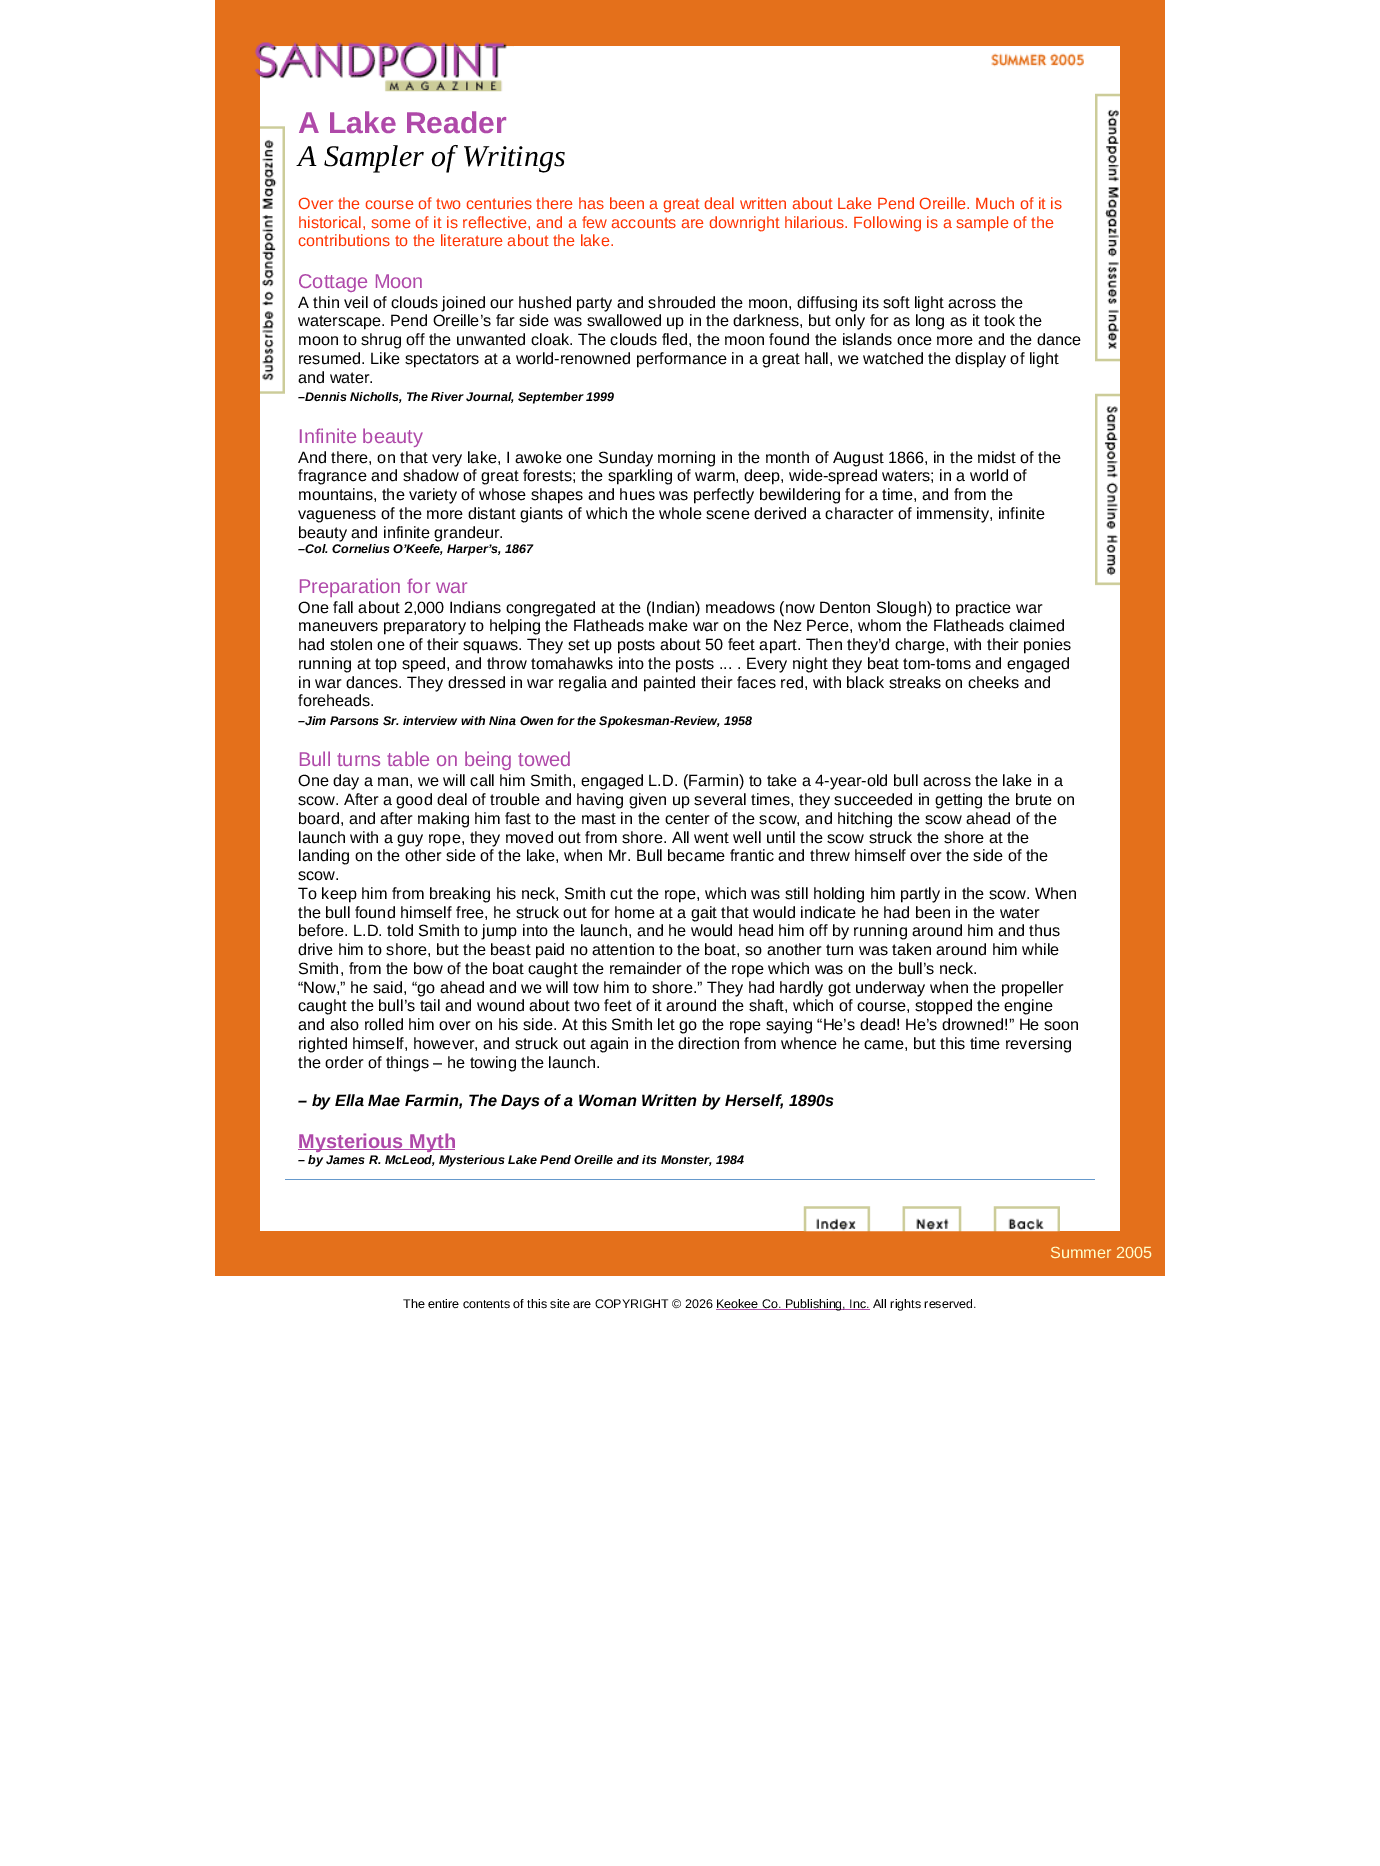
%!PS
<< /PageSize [1380 1866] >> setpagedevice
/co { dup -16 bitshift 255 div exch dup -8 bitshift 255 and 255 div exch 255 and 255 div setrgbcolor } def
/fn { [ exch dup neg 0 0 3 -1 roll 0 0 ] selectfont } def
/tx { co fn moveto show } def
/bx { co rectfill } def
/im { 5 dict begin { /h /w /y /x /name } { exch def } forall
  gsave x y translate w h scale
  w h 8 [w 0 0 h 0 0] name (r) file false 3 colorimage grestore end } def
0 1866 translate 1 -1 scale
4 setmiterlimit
0 0 1380 1866 16#FFFFFF bx
215 0 45 1231 16#E4701B bx
(media/1.raw) 254 43 6 34 im
260 0 905 46 16#E4701B bx
(media/2.raw) 260 42 254 5 im
(media/3.raw) 260 46 254 46 im
(media/4.raw) 991 53 93 14 im
1120 46 45 1185 16#E4701B bx
(media/5.raw) 260 126 25 268 im
298 1149 157 1 16#AF49A9 bx
285 1179 810 1 16#6699CC bx
(media/6.raw) 1095 93 25 493 im
215 1231 950 45 16#E4701B bx
(media/7.raw) 803 1206 257 26 im
716 1309 154 1 16#AF49A9 bx
(A Lake Reader) 298 133 /LiberationSans-Bold 30 16#AF49A9 tx
(A Sampler of Writings) 298 166 /LiberationSerif-Italic 30 16#000000 tx
(Over the course of two centuries there has been a great deal written about Lake Pend Oreille. Much of it is) 298 209 /LiberationSans-Regular 16.25 16#FF3300 tx
(historical, some of it is reflective, and a few accounts are downright hilarious. Following is a sample of the) 298 228 /LiberationSans-Regular 16.25 16#FF3300 tx
(contributions to the literature about the lake.) 298 246 /LiberationSans-Regular 16.25 16#FF3300 tx
(Cottage Moon) 298 288 /LiberationSans-Regular 20 16#AF49A9 tx
(A thin veil of clouds joined our hushed party and shrouded the moon, diffusing its soft light across the) 298 308 /LiberationSans-Regular 16.25 16#000000 tx
(waterscape. Pend Oreille’s far side was swallowed up in the darkness, but only for as long as it took the) 298 326 /LiberationSans-Regular 16.25 16#000000 tx
(moon to shrug off the unwanted cloak. The clouds fled, the moon found the islands once more and the dance) 298 345 /LiberationSans-Regular 16.25 16#000000 tx
(resumed. Like spectators at a world-renowned performance in a great hall, we watched the display of light) 298 364 /LiberationSans-Regular 16.25 16#000000 tx
(and water.) 298 383 /LiberationSans-Regular 16.25 16#000000 tx
(–Dennis Nicholls, The River Journal, September 1999) 298 401 /LiberationSans-BoldItalic 12.5 16#000000 tx
(Infinite beauty) 298 443 /LiberationSans-Regular 20 16#AF49A9 tx
(And there, on that very lake, I awoke one Sunday morning in the month of August 1866, in the midst of the) 298 463 /LiberationSans-Regular 16.25 16#000000 tx
(fragrance and shadow of great forests; the sparkling of warm, deep, wide-spread waters; in a world of) 298 481 /LiberationSans-Regular 16.25 16#000000 tx
(mountains, the variety of whose shapes and hues was perfectly bewildering for a time, and from the) 298 500 /LiberationSans-Regular 16.25 16#000000 tx
(vagueness of the more distant giants of which the whole scene derived a character of immensity, infinite) 298 519 /LiberationSans-Regular 16.25 16#000000 tx
(beauty and infinite grandeur.) 298 538 /LiberationSans-Regular 16.25 16#000000 tx
(–Col. Cornelius O’Keefe, Harper’s, 1867) 298 553 /LiberationSans-BoldItalic 12.5 16#000000 tx
(Preparation for war) 298 593 /LiberationSans-Regular 20 16#AF49A9 tx
(One fall about 2,000 Indians congregated at the \(Indian\) meadows \(now Denton Slough\) to practice war) 298 613 /LiberationSans-Regular 16.25 16#000000 tx
(maneuvers preparatory to helping the Flatheads make war on the Nez Perce, whom the Flatheads claimed) 298 631 /LiberationSans-Regular 16.25 16#000000 tx
(had stolen one of their squaws. They set up posts about 50 feet apart. Then they’d charge, with their ponies) 298 650 /LiberationSans-Regular 16.25 16#000000 tx
(running at top speed, and throw tomahawks into the posts ... . Every night they beat tom-toms and engaged) 298 669 /LiberationSans-Regular 16.25 16#000000 tx
(in war dances. They dressed in war regalia and painted their faces red, with black streaks on cheeks and) 298 688 /LiberationSans-Regular 16.25 16#000000 tx
(foreheads.) 298 706 /LiberationSans-Regular 16.25 16#000000 tx
(–Jim Parsons Sr. interview with Nina Owen for the Spokesman-Review, 1958) 298 725 /LiberationSans-BoldItalic 12.5 16#000000 tx
(Bull turns table on being towed) 298 766 /LiberationSans-Regular 20 16#AF49A9 tx
(One day a man, we will call him Smith, engaged L.D. \(Farmin\) to take a 4-year-old bull across the lake in a) 298 786 /LiberationSans-Regular 16.25 16#000000 tx
(scow. After a good deal of trouble and having given up several times, they succeeded in getting the brute on) 298 805 /LiberationSans-Regular 16.25 16#000000 tx
(board, and after making him fast to the mast in the center of the scow, and hitching the scow ahead of the) 298 824 /LiberationSans-Regular 16.25 16#000000 tx
(launch with a guy rope, they moved out from shore. All went well until the scow struck the shore at the) 298 843 /LiberationSans-Regular 16.25 16#000000 tx
(landing on the other side of the lake, when Mr. Bull became frantic and threw himself over the side of the) 298 861 /LiberationSans-Regular 16.25 16#000000 tx
(scow.) 298 880 /LiberationSans-Regular 16.25 16#000000 tx
(To keep him from breaking his neck, Smith cut the rope, which was still holding him partly in the scow. When) 298 899 /LiberationSans-Regular 16.25 16#000000 tx
(the bull found himself free, he struck out for home at a gait that would indicate he had been in the water) 298 918 /LiberationSans-Regular 16.25 16#000000 tx
(before. L.D. told Smith to jump into the launch, and he would head him off by running around him and thus) 298 936 /LiberationSans-Regular 16.25 16#000000 tx
(drive him to shore, but the beast paid no attention to the boat, so another turn was taken around him while) 298 955 /LiberationSans-Regular 16.25 16#000000 tx
(Smith, from the bow of the boat caught the remainder of the rope which was on the bull’s neck.) 298 974 /LiberationSans-Regular 16.25 16#000000 tx
(“Now,” he said, “go ahead and we will tow him to shore.” They had hardly got underway when the propeller) 298 993 /LiberationSans-Regular 16.25 16#000000 tx
(caught the bull’s tail and wound about two feet of it around the shaft, which of course, stopped the engine) 298 1011 /LiberationSans-Regular 16.25 16#000000 tx
(and also rolled him over on his side. At this Smith let go the rope saying “He’s dead! He’s drowned!” He soon) 298 1030 /LiberationSans-Regular 16.25 16#000000 tx
(righted himself, however, and struck out again in the direction from whence he came, but this time reversing) 298 1049 /LiberationSans-Regular 16.25 16#000000 tx
(the order of things – he towing the launch.) 298 1068 /LiberationSans-Regular 16.25 16#000000 tx
(– by Ella Mae Farmin, The Days of a Woman Written by Herself, 1890s) 298 1106 /LiberationSans-BoldItalic 16.25 16#000000 tx
(Mysterious Myth) 298 1148 /LiberationSans-Bold 20 16#AF49A9 tx
(– by James R. McLeod, Mysterious Lake Pend Oreille and its Monster, 1984) 298 1164 /LiberationSans-BoldItalic 12.5 16#000000 tx
(Summer 2005) 1050 1258 /LiberationSans-Regular 16.25 16#FFFFCC tx
(The entire contents of this site are COPYRIGHT © 2026) 403 1308 /LiberationSans-Regular 12.5 16#000000 tx
(Keokee Co. Publishing, Inc. All rights reserved.) 716 1308 /LiberationSans-Regular 12.5 16#000000 tx
showpage
